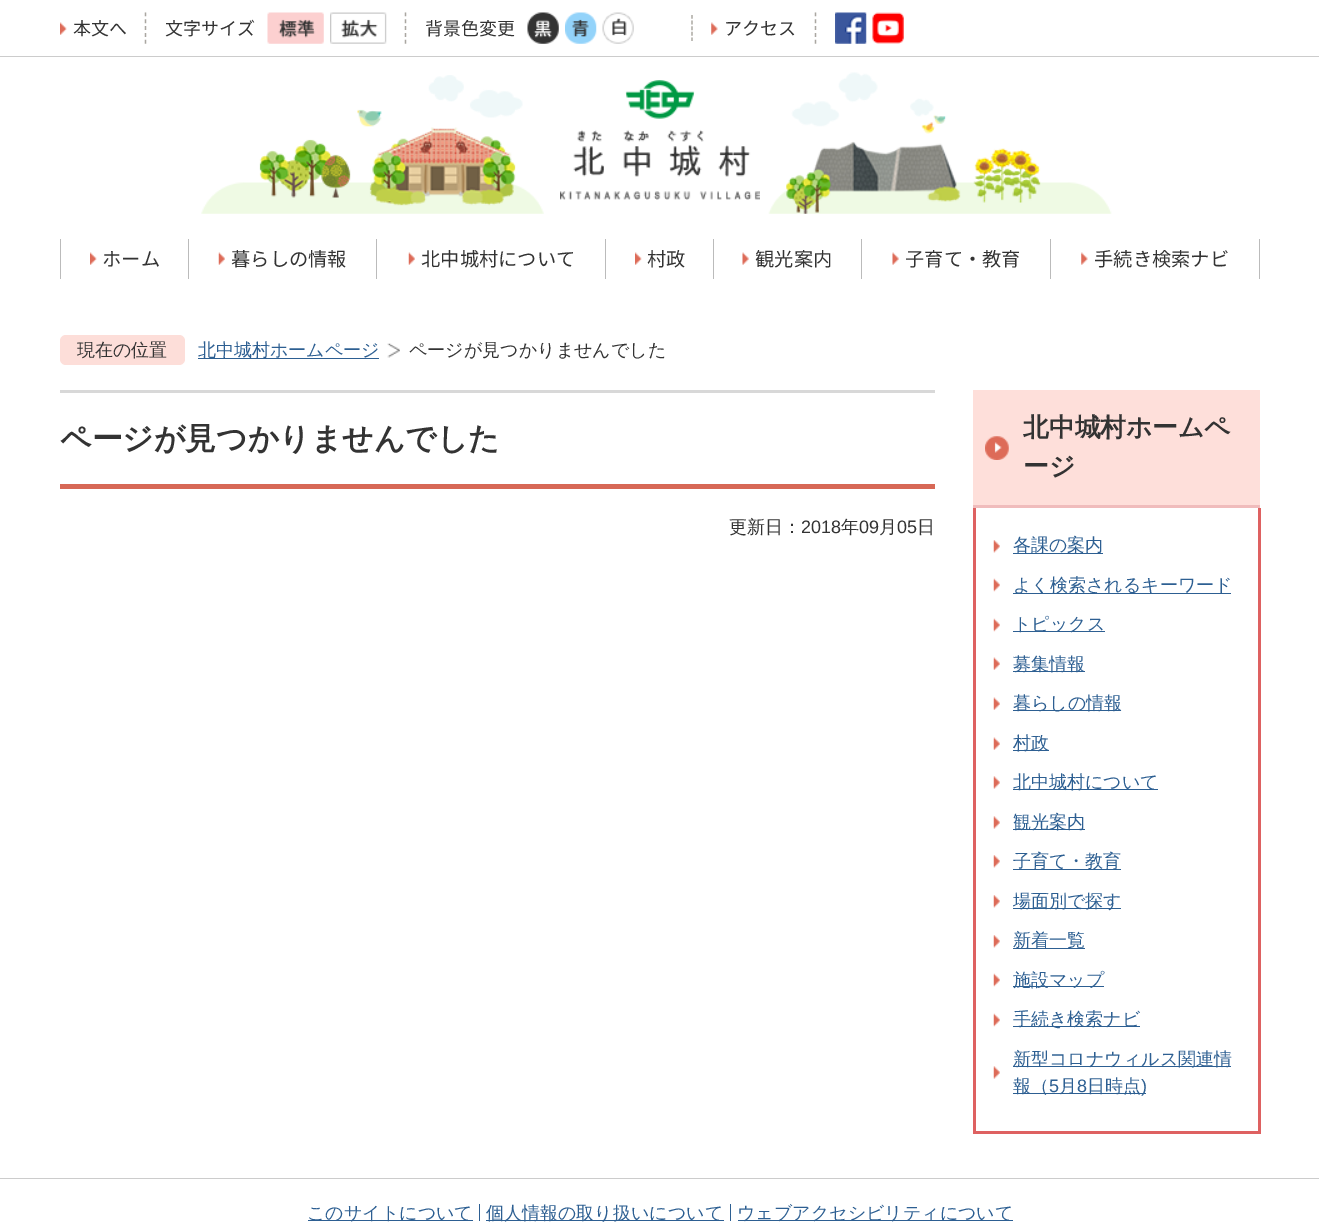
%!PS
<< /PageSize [1319 1224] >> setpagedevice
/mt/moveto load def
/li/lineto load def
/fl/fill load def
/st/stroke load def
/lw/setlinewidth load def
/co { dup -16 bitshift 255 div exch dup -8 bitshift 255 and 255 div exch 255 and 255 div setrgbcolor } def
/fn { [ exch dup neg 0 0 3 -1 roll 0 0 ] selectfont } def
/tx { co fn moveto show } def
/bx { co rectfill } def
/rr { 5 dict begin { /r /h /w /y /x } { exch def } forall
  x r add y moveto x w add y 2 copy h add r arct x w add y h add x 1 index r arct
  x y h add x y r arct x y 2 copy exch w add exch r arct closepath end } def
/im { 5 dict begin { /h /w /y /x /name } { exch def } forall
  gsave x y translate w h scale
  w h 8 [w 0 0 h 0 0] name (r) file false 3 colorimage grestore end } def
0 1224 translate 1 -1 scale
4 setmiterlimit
0 0 1319 1224 16#FFFFFF bx
0 56 1319 1 16#CCCCCC bx
(media/1.raw) 60 22 7 13 im
16#AAA7A1 co
1.2 lw
[3.75 3.12] 0 setdash
145.5 12.5 mt 145.5 44 li st
(media/2.raw) 267 12 57 32 im
(media/3.raw) 330 12 57 32 im
405.5 12.5 mt 405.5 44 li st
(media/4.raw) 527 12 32 32 im
(media/5.raw) 565 12 32 32 im
(media/6.raw) 602 12 32 32 im
[3.75 1.88] 0 setdash
692 15 mt 692 41 li st
(media/7.raw) 711 22 7 13 im
[3.75 3.12] 0 setdash
815.5 12.5 mt 815.5 44 li st
(media/8.raw) 835 12 32 32 im
(media/9.raw) 872 12 32 32 im
(media/10.raw) 201 75 343 139 im
(media/11.raw) 560 80 200 120 im
(media/12.raw) 768 72 344 142 im
60 239 1 40 16#BBBBBB bx
(media/1.raw) 90 252 7 13 im
188 239 1 40 16#BBBBBB bx
(media/13.raw) 218 252 7 13 im
376 239 1 40 16#BBBBBB bx
(media/14.raw) 408 252 7 13 im
605 239 1 40 16#BBBBBB bx
(media/1.raw) 635 252 7 13 im
713 239 1 40 16#BBBBBB bx
(media/15.raw) 742 252 7 13 im
861 239 1 40 16#BBBBBB bx
(media/15.raw) 892 252 7 13 im
1259 239 1 40 16#BBBBBB bx
1050 239 1 40 16#BBBBBB bx
(media/7.raw) 1081 252 7 13 im
16#FDDED9 co
60 335 125 30 6 rr fl
198 358 181 1 16#2D5F92 bx
(media/16.raw) 387 343 13 15 im
60 390 875 3 16#D8D8D8 bx
60 484 875 5 16#D76856 bx
973 390 287 115 16#FEDFDA bx
(media/17.raw) 985 436 24 24 im
973 505 287 3 16#F0BCBC bx
1258 508 3 626 16#DE6161 bx
973 1131 287 3 16#DE6161 bx
973 508 3 626 16#DE6161 bx
(media/18.raw) 993 540 7 13 im
1013 553 90 1 16#2D5F92 bx
(media/19.raw) 993 578 7 14 im
1013 593 218 1 16#2D5F92 bx
(media/19.raw) 993 618 7 14 im
1013 631 92 1 16#2D5F92 bx
(media/14.raw) 993 657 7 13 im
1013 671 72 1 16#2D5F92 bx
(media/14.raw) 993 697 7 13 im
1013 710 108 1 16#2D5F92 bx
(media/14.raw) 993 737 7 13 im
1013 750 36 1 16#2D5F92 bx
(media/20.raw) 993 776 7 13 im
1013 789 145 1 16#2D5F92 bx
(media/21.raw) 993 816 7 13 im
1013 829 72 1 16#2D5F92 bx
(media/18.raw) 993 855 7 13 im
1013 869 108 1 16#2D5F92 bx
(media/18.raw) 993 895 7 13 im
1013 908 108 1 16#2D5F92 bx
(media/18.raw) 993 935 7 13 im
1013 948 72 1 16#2D5F92 bx
(media/19.raw) 993 973 7 14 im
1013 986 91 1 16#2D5F92 bx
(media/19.raw) 993 1013 7 14 im
1013 1026 127 1 16#2D5F92 bx
(media/21.raw) 993 1066 7 13 im
1013 1066 218 1 16#2D5F92 bx
1013 1093 133 1 16#2D5F92 bx
0 1178 1319 1 16#CCCCCC bx
479 1204 1 17 16#2D5F92 bx
308 1220 165 1 16#2D5F92 bx
730 1204 1 17 16#2D5F92 bx
486 1220 238 1 16#2D5F92 bx
738 1220 275 1 16#2D5F92 bx
(本文へ) 73 35 /NotoSansJP-Regular 18 16#333333 tx
(文字サイズ) 165 35 /NotoSansJP-Regular 18 16#333333 tx
(背景色変更) 425 35 /NotoSansJP-Regular 18 16#333333 tx
(アクセス) 724 35 /NotoSansJP-Regular 18 16#333333 tx
(ホーム) 102 266 /NotoSansJP-Regular 19.25 16#333333 tx
(暮らしの情報) 231 266 /NotoSansJP-Regular 19.25 16#333333 tx
(北中城村について) 421 266 /NotoSansJP-Regular 19.25 16#333333 tx
(村政) 647 266 /NotoSansJP-Regular 19.25 16#333333 tx
(観光案内) 755 266 /NotoSansJP-Regular 19.25 16#333333 tx
(子育て・教育) 905 266 /NotoSansJP-Regular 19.25 16#333333 tx
(手続き検索ナビ) 1094 266 /NotoSansJP-Regular 19.25 16#333333 tx
(現在の位置) 77 356 /WenQuanYiZenHei-Medium 18 16#333333 tx
(北中城村ホームページ) 198 356 /WenQuanYiZenHei-Medium 18 16#2D5F92 tx
(ページが見つかりませんでした) 409 356 /WenQuanYiZenHei-Medium 18 16#333333 tx
(ページが見つかりませんでした) 60 449 /WenQuanYiZenHei-Bold 30.8 16#333333 tx
(更新日：) 729 533 /WenQuanYiZenHei-Medium 18 16#333333 tx
(2018) 801 533 /LiberationSans-Regular 18 16#333333 tx
(年) 841 533 /WenQuanYiZenHei-Medium 18 16#333333 tx
(09) 859 533 /LiberationSans-Regular 18 16#333333 tx
(月) 879 533 /WenQuanYiZenHei-Medium 18 16#333333 tx
(05) 897 533 /LiberationSans-Regular 18 16#333333 tx
(日) 917 533 /WenQuanYiZenHei-Medium 18 16#333333 tx
(北中城村ホームペ) 1023 436 /WenQuanYiZenHei-Bold 25.75 16#333333 tx
(ージ) 1023 475 /WenQuanYiZenHei-Bold 25.75 16#333333 tx
(各課の案内) 1013 551 /WenQuanYiZenHei-Medium 18 16#2D5F92 tx
(よく検索されるキーワード) 1013 591 /WenQuanYiZenHei-Medium 18 16#2D5F92 tx
(トピックス) 1013 630 /WenQuanYiZenHei-Medium 18 16#2D5F92 tx
(募集情報) 1013 670 /WenQuanYiZenHei-Medium 18 16#2D5F92 tx
(暮らしの情報) 1013 709 /WenQuanYiZenHei-Medium 18 16#2D5F92 tx
(村政) 1013 749 /WenQuanYiZenHei-Medium 18 16#2D5F92 tx
(北中城村について) 1013 788 /WenQuanYiZenHei-Medium 18 16#2D5F92 tx
(観光案内) 1013 828 /WenQuanYiZenHei-Medium 18 16#2D5F92 tx
(子育て・教育) 1013 867 /WenQuanYiZenHei-Medium 18 16#2D5F92 tx
(場面別で探す) 1013 907 /WenQuanYiZenHei-Medium 18 16#2D5F92 tx
(新着一覧) 1013 946 /WenQuanYiZenHei-Medium 18 16#2D5F92 tx
(施設マップ) 1013 986 /WenQuanYiZenHei-Medium 18 16#2D5F92 tx
(手続き検索ナビ) 1013 1025 /WenQuanYiZenHei-Medium 18 16#2D5F92 tx
(新型コロナウィルス関連情) 1013 1065 /WenQuanYiZenHei-Medium 18 16#2D5F92 tx
(報（) 1013 1092 /WenQuanYiZenHei-Medium 18 16#2D5F92 tx
(5) 1049 1092 /LiberationSans-Regular 18 16#2D5F92 tx
(月) 1059 1092 /WenQuanYiZenHei-Medium 18 16#2D5F92 tx
(8) 1077 1092 /LiberationSans-Regular 18 16#2D5F92 tx
(日時点) 1087 1092 /WenQuanYiZenHei-Medium 18 16#2D5F92 tx
(\)) 1141 1092 /LiberationSans-Regular 18 16#2D5F92 tx
(このサイトについて) 307 1219 /WenQuanYiZenHei-Medium 18 16#2D5F92 tx
(個人情報の取り扱いについて) 486 1219 /WenQuanYiZenHei-Medium 18 16#2D5F92 tx
(ウェブアクセシビリティについて) 737 1219 /WenQuanYiZenHei-Medium 18 16#2D5F92 tx
showpage
